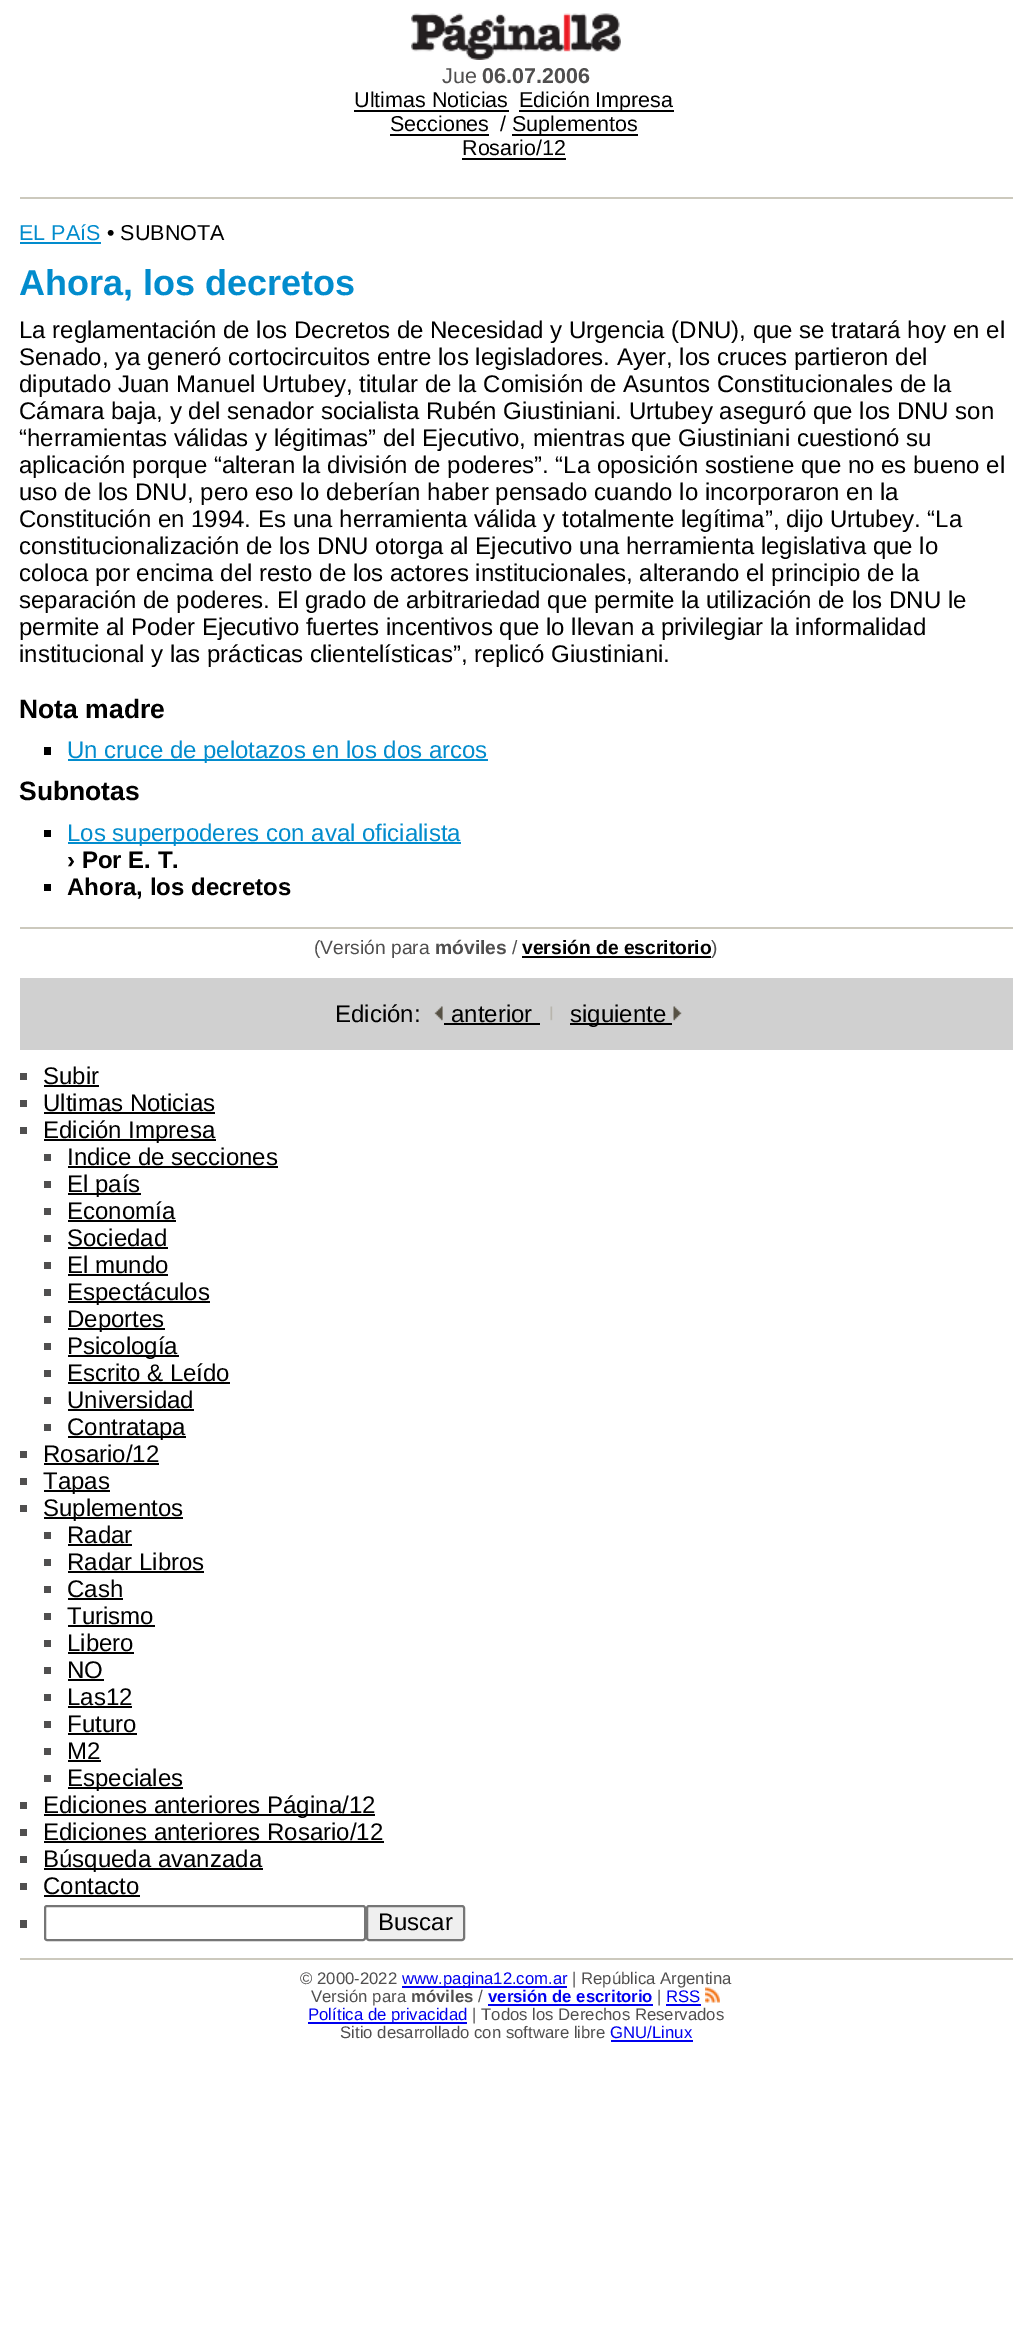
%!PS
<< /PageSize [1031 2345] >> setpagedevice
/fl/fill load def
/st/stroke load def
/gs/gsave load def
/gr/grestore load def
/lw/setlinewidth load def
/co { dup -16 bitshift 255 div exch dup -8 bitshift 255 and 255 div exch 255 and 255 div setrgbcolor } def
/fn { [ exch dup neg 0 0 3 -1 roll 0 0 ] selectfont } def
/tx { co fn moveto show } def
/bx { co rectfill } def
/rr { 5 dict begin { /r /h /w /y /x } { exch def } forall
  x r add y moveto x w add y 2 copy h add r arct x w add y h add x 1 index r arct
  x y h add x y r arct x y 2 copy exch w add exch r arct closepath end } def
/im { 5 dict begin { /h /w /y /x /name } { exch def } forall
  gsave x y translate w h scale
  w h 8 [w 0 0 h 0 0] name (r) file false 3 colorimage grestore end } def
0 2345 translate 1 -1 scale
4 setmiterlimit
0 0 1031 2345 16#FFFFFF bx
(media/1.raw) 411 13 210 47 im
354 110 155 2 16#000000 bx
519 110 155 2 16#000000 bx
390 134 99 2 16#000000 bx
512 134 126 2 16#000000 bx
462 158 104 2 16#000000 bx
20 197 993 2 16#CCC9BD bx
20 242 81 2 16#028CCD bx
44 747 7 8 16#000000 bx
68 759 420 2 16#028CCD bx
44 830 7 7 16#000000 bx
68 842 393 2 16#028CCD bx
44 884 7 7 16#000000 bx
20 927 993 2 16#CCC9BD bx
522 956 189 2 16#000000 bx
20 978 993 72 16#D0D0D0 bx
(media/2.raw) 434 1006 9 15 im
444 1023 96 2 16#000000 bx
(media/3.raw) 550 1006 3 15 im
570 1023 102 2 16#000000 bx
(media/4.raw) 673 1006 9 15 im
20 1073 7 7 16#504F4F bx
44 1085 55 2 16#000000 bx
20 1100 7 7 16#504F4F bx
44 1112 171 2 16#000000 bx
20 1127 7 7 16#504F4F bx
44 1139 172 2 16#000000 bx
44 1154 7 7 16#504F4F bx
68 1166 210 2 16#000000 bx
44 1181 7 7 16#504F4F bx
68 1193 73 2 16#000000 bx
44 1208 7 7 16#504F4F bx
68 1220 108 2 16#000000 bx
44 1235 7 7 16#504F4F bx
68 1247 100 2 16#000000 bx
44 1262 7 7 16#504F4F bx
68 1274 100 2 16#000000 bx
44 1289 7 7 16#504F4F bx
68 1301 142 2 16#000000 bx
44 1316 7 7 16#504F4F bx
68 1328 97 2 16#000000 bx
44 1343 7 7 16#504F4F bx
68 1355 111 2 16#000000 bx
44 1370 7 7 16#504F4F bx
68 1382 162 2 16#000000 bx
44 1397 7 7 16#504F4F bx
68 1409 126 2 16#000000 bx
44 1424 7 7 16#504F4F bx
68 1436 118 2 16#000000 bx
20 1451 7 7 16#504F4F bx
44 1463 115 2 16#000000 bx
20 1478 7 7 16#504F4F bx
44 1490 66 2 16#000000 bx
20 1505 7 7 16#504F4F bx
44 1517 139 2 16#000000 bx
44 1532 7 7 16#504F4F bx
68 1544 64 2 16#000000 bx
44 1559 7 7 16#504F4F bx
68 1571 136 2 16#000000 bx
44 1586 7 7 16#504F4F bx
68 1598 55 2 16#000000 bx
44 1613 7 7 16#504F4F bx
68 1625 87 2 16#000000 bx
44 1640 7 7 16#504F4F bx
68 1652 66 2 16#000000 bx
44 1667 7 7 16#504F4F bx
68 1679 36 2 16#000000 bx
44 1694 7 7 16#504F4F bx
68 1706 64 2 16#000000 bx
44 1721 7 7 16#504F4F bx
68 1733 69 2 16#000000 bx
44 1748 7 7 16#504F4F bx
68 1760 33 2 16#000000 bx
44 1775 7 7 16#504F4F bx
68 1787 115 2 16#000000 bx
20 1802 7 7 16#504F4F bx
44 1814 331 2 16#000000 bx
20 1829 7 7 16#504F4F bx
44 1841 340 2 16#000000 bx
20 1856 7 7 16#504F4F bx
44 1868 219 2 16#000000 bx
20 1883 7 7 16#504F4F bx
44 1895 96 2 16#000000 bx
20 1920 7 8 16#504F4F bx
16#767676 co
2 lw
45 1906 320 34 2 rr st
16#EFEFEF co
367 1906 97 34 2 rr gs fl gr
16#767676 co
st
20 1958 993 2 16#CCC9BD bx
402 1986 165 2 16#0000EE bx
488 2004 165 2 16#0000EE bx
666 2004 35 2 16#0000EE bx
308 2022 159 2 16#0000EE bx
611 2040 82 2 16#0000EE bx
(Jue) 442 83 /LiberationSans-Regular 21.5 16#504F4F tx
(06.07.2006) 482 83 /LiberationSans-Bold 21.5 16#504F4F tx
(Ultimas Noticias) 354 107 /LiberationSans-Regular 21.5 16#000000 tx
(Edición Impresa) 519 107 /LiberationSans-Regular 21.5 16#000000 tx
(Secciones) 390 131 /LiberationSans-Regular 21.5 16#000000 tx
(/) 500 131 /LiberationSans-Regular 21.5 16#000000 tx
(Suplementos) 512 131 /LiberationSans-Regular 21.5 16#000000 tx
(Rosario/12) 462 155 /LiberationSans-Regular 21.5 16#000000 tx
(EL PAíS) 19 240 /LiberationSans-Regular 21.5 16#028CCD tx
(• SUBNOTA) 107 240 /LiberationSans-Regular 21.5 16#000000 tx
(Ahora, los decretos) 19 295 /LiberationSans-Bold 36 16#028CCD tx
(La reglamentación de los Decretos de Necesidad y Urgencia \(DNU\), que se tratará hoy en el) 19 338 /LiberationSans-Regular 24 16#000000 tx
(Senado, ya generó cortocircuitos entre los legisladores. Ayer, los cruces partieron del) 19 365 /LiberationSans-Regular 24 16#000000 tx
(diputado Juan Manuel Urtubey, titular de la Comisión de Asuntos Constitucionales de la) 19 392 /LiberationSans-Regular 24 16#000000 tx
(Cámara baja, y del senador socialista Rubén Giustiniani. Urtubey aseguró que los DNU son) 19 419 /LiberationSans-Regular 24 16#000000 tx
(“herramientas válidas y légitimas” del Ejecutivo, mientras que Giustiniani cuestionó su) 19 446 /LiberationSans-Regular 24 16#000000 tx
(aplicación porque “alteran la división de poderes”. “La oposición sostiene que no es bueno el) 19 473 /LiberationSans-Regular 24 16#000000 tx
(uso de los DNU, pero eso lo deberían haber pensado cuando lo incorporaron en la) 19 500 /LiberationSans-Regular 24 16#000000 tx
(Constitución en 1994. Es una herramienta válida y totalmente legítima”, dijo Urtubey. “La) 19 527 /LiberationSans-Regular 24 16#000000 tx
(constitucionalización de los DNU otorga al Ejecutivo una herramienta legislativa que lo) 19 554 /LiberationSans-Regular 24 16#000000 tx
(coloca por encima del resto de los actores institucionales, alterando el principio de la) 19 581 /LiberationSans-Regular 24 16#000000 tx
(separación de poderes. El grado de arbitrariedad que permite la utilización de los DNU le) 19 608 /LiberationSans-Regular 24 16#000000 tx
(permite al Poder Ejecutivo fuertes incentivos que lo llevan a privilegiar la informalidad) 19 635 /LiberationSans-Regular 24 16#000000 tx
(institucional y las prácticas clientelísticas”, replicó Giustiniani.) 19 662 /LiberationSans-Regular 24 16#000000 tx
(Nota madre) 19 718 /LiberationSans-Bold 26.5 16#000000 tx
(Un cruce de pelotazos en los dos arcos) 67 758 /LiberationSans-Regular 24 16#028CCD tx
(Subnotas) 19 800 /LiberationSans-Bold 26.5 16#000000 tx
(Los superpoderes con aval oficialista) 67 841 /LiberationSans-Regular 24 16#028CCD tx
(› Por E. T.) 67 868 /LiberationSans-Bold 24 16#000000 tx
(Ahora, los decretos) 67 895 /LiberationSans-Bold 24 16#000000 tx
(\(Versión para) 314 954 /LiberationSans-Regular 19.25 16#504F4F tx
(móviles) 435 954 /LiberationSans-Bold 19.25 16#504F4F tx
(/) 512 954 /LiberationSans-Regular 19.25 16#504F4F tx
(versión de escritorio) 522 954 /LiberationSans-Bold 19.25 16#000000 tx
(\)) 711 954 /LiberationSans-Regular 19.25 16#504F4F tx
(Edición:) 335 1022 /LiberationSans-Regular 24 16#000000 tx
(anterior) 451 1022 /LiberationSans-Regular 24 16#000000 tx
(siguiente) 570 1022 /LiberationSans-Regular 24 16#000000 tx
(Subir) 43 1084 /LiberationSans-Regular 24 16#000000 tx
(Ultimas Noticias) 43 1111 /LiberationSans-Regular 24 16#000000 tx
(Edición Impresa) 43 1138 /LiberationSans-Regular 24 16#000000 tx
(Indice de secciones) 67 1165 /LiberationSans-Regular 24 16#000000 tx
(El país) 67 1192 /LiberationSans-Regular 24 16#000000 tx
(Economía) 67 1219 /LiberationSans-Regular 24 16#000000 tx
(Sociedad) 67 1246 /LiberationSans-Regular 24 16#000000 tx
(El mundo) 67 1273 /LiberationSans-Regular 24 16#000000 tx
(Espectáculos) 67 1300 /LiberationSans-Regular 24 16#000000 tx
(Deportes) 67 1327 /LiberationSans-Regular 24 16#000000 tx
(Psicología) 67 1354 /LiberationSans-Regular 24 16#000000 tx
(Escrito & Leído) 67 1381 /LiberationSans-Regular 24 16#000000 tx
(Universidad) 67 1408 /LiberationSans-Regular 24 16#000000 tx
(Contratapa) 67 1435 /LiberationSans-Regular 24 16#000000 tx
(Rosario/12) 43 1462 /LiberationSans-Regular 24 16#000000 tx
(Tapas) 43 1489 /LiberationSans-Regular 24 16#000000 tx
(Suplementos) 43 1516 /LiberationSans-Regular 24 16#000000 tx
(Radar) 67 1543 /LiberationSans-Regular 24 16#000000 tx
(Radar Libros) 67 1570 /LiberationSans-Regular 24 16#000000 tx
(Cash) 67 1597 /LiberationSans-Regular 24 16#000000 tx
(Turismo) 67 1624 /LiberationSans-Regular 24 16#000000 tx
(Libero) 67 1651 /LiberationSans-Regular 24 16#000000 tx
(NO) 67 1678 /LiberationSans-Regular 24 16#000000 tx
(Las12) 67 1705 /LiberationSans-Regular 24 16#000000 tx
(Futuro) 67 1732 /LiberationSans-Regular 24 16#000000 tx
(M2) 67 1759 /LiberationSans-Regular 24 16#000000 tx
(Especiales) 67 1786 /LiberationSans-Regular 24 16#000000 tx
(Ediciones anteriores Página/12) 43 1813 /LiberationSans-Regular 24 16#000000 tx
(Ediciones anteriores Rosario/12) 43 1840 /LiberationSans-Regular 24 16#000000 tx
(Búsqueda avanzada) 43 1867 /LiberationSans-Regular 24 16#000000 tx
(Contacto) 43 1894 /LiberationSans-Regular 24 16#000000 tx
(Buscar) 378 1930 /LiberationSans-Regular 24 16#000000 tx
(© 2000-2022) 300 1984 /LiberationSans-Regular 16.75 16#504F4F tx
(www.pagina12.com.ar) 402 1984 /LiberationSans-Regular 16.75 16#0000EE tx
(| República Argentina) 572 1984 /LiberationSans-Regular 16.75 16#504F4F tx
(Versión para) 311 2002 /LiberationSans-Regular 16.75 16#504F4F tx
(móviles) 411 2002 /LiberationSans-Bold 16.75 16#504F4F tx
(/) 478 2002 /LiberationSans-Regular 16.75 16#504F4F tx
(versión de escritorio) 488 2002 /LiberationSans-Bold 16.75 16#0000EE tx
(|) 657 2002 /LiberationSans-Regular 16.75 16#504F4F tx
(RSS) 666 2002 /LiberationSans-Regular 16.75 16#0000EE tx
(media/5.raw) 705 1987 15 16 im
(Política de privacidad) 308 2020 /LiberationSans-Regular 16.75 16#0000EE tx
(| Todos los Derechos Reservados) 472 2020 /LiberationSans-Regular 16.75 16#504F4F tx
(Sitio desarrollado con software libre) 340 2038 /LiberationSans-Regular 16.75 16#504F4F tx
(GNU/Linux) 610 2038 /LiberationSans-Regular 16.75 16#0000EE tx
showpage
